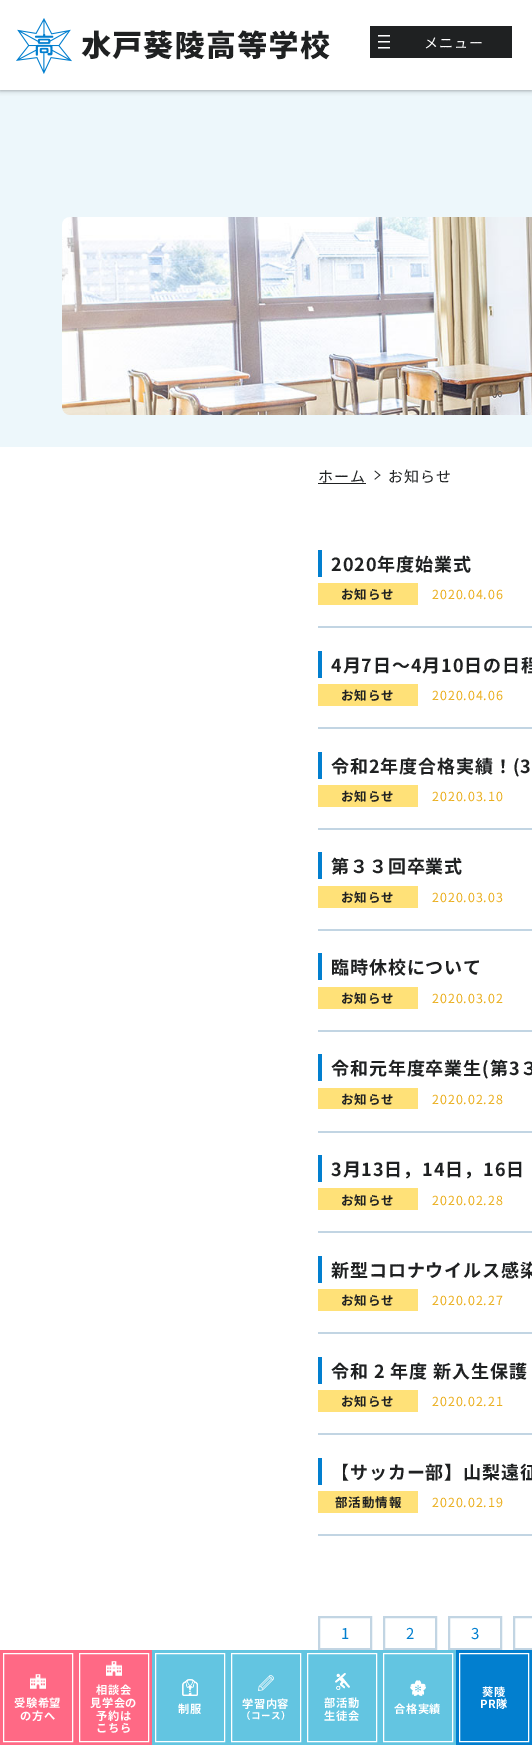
%!PS
<< /PageSize [532 1745] /PageUsesTransparency true >> setpagedevice
/mt/moveto load def
/lw/setlinewidth load def
/co { dup -16 bitshift 255 div exch dup -8 bitshift 255 and 255 div exch 255 and 255 div setrgbcolor } def
/fn { [ exch dup neg 0 0 3 -1 roll 0 0 ] selectfont } def
/tx { co fn moveto show } def
/bx { co rectfill } def
/al { dup .setfillconstantalpha .setstrokeconstantalpha } def
/rr { 5 dict begin { /r /h /w /y /x } { exch def } forall
  x r add y moveto x w add y 2 copy h add r arct x w add y h add x 1 index r arct
  x y h add x y r arct x y 2 copy exch w add exch r arct closepath end } def
/sh { 12 dict begin { /a /b /q /h /w /y /x } { exch def } forall gsave /was 0 def
  9 -2 -9 { dup b mul 4 div /e exch def 1 sub .425 mul 2.718 exch exp 1 add a .99 .min exch div /now exch def
    1 1 now sub 1 was sub div sub al /was now def
    w h .min e 2 mul add 0 gt { x e sub y e sub w e 2 mul add h e 2 mul add
      q e add b .6 mul add w h .min 2 div e add .min 0 .max rr fill } if } for grestore end } def
/im { 5 dict begin { /h /w /y /x /name } { exch def } forall
  gsave x y translate w h scale
  w h 8 [w 0 0 h 0 0] name (r) file false 3 colorimage grestore end } def
0 .pushpdf14devicefilter
0 1745 translate 1 -1 scale
4 setmiterlimit
0 0 532 1745 16#FFFFFF bx
0 90 532 357 16#EDF7FB bx
16#1F2122 co
0 0 532 90 0 2.5 .5 sh
0 0 532 90 16#FFFFFF bx
(media/1.raw) 16 18 314 56 im
370 26 142 32 16#1F2122 bx
(media/2.raw) 378 35 12 14 im
(media/3.raw) 62 217 470 198 im
318 483 48 1 16#1F2122 bx
(media/4.raw) 374 470 7 10 im
318 626 214 2 16#C2D5E3 bx
318 550 4 27 16#027FCF bx
318 583 100 22 16#FFE178 bx
318 727 214 2 16#C2D5E3 bx
318 651 4 27 16#027FCF bx
318 684 100 22 16#FFE178 bx
318 828 214 2 16#C2D5E3 bx
318 752 4 27 16#027FCF bx
318 785 100 22 16#FFE178 bx
318 929 214 2 16#C2D5E3 bx
318 852 4 27 16#027FCF bx
318 886 100 22 16#FFE178 bx
318 1030 214 2 16#C2D5E3 bx
318 953 4 27 16#027FCF bx
318 987 100 22 16#FFE178 bx
318 1131 214 2 16#C2D5E3 bx
318 1054 4 27 16#027FCF bx
318 1088 100 21 16#FFE178 bx
318 1231 214 2 16#C2D5E3 bx
318 1155 4 27 16#027FCF bx
318 1188 100 22 16#FFE178 bx
318 1332 214 2 16#C2D5E3 bx
318 1256 4 27 16#027FCF bx
318 1289 100 22 16#FFE178 bx
318 1433 214 2 16#C2D5E3 bx
318 1357 4 27 16#027FCF bx
318 1390 100 22 16#FFE178 bx
318 1534 214 2 16#C2D5E3 bx
318 1458 4 27 16#027FCF bx
318 1491 100 22 16#FFE178 bx
16#C2D5E3 co
2 lw
319 1617 52 32 rectstroke
384 1617 52 32 rectstroke
449 1617 52 32 rectstroke
514 1617 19 32 rectstroke
0 1650 152 95 16#FF6985 bx
16#FFFFFF co
1 lw
3.5 1653.5 69 88 rectstroke
(media/5.raw) 30 1674 16 15 im
79.5 1653.5 69 88 rectstroke
(media/5.raw) 106 1661 16 15 im
152 1650 304 95 16#63C5E1 bx
16#FFFFFF co
155.5 1653.5 69 88 rectstroke
(media/6.raw) 182 1679 16 17 im
231.5 1653.5 69 88 rectstroke
(media/7.raw) 258 1675 16 16 im
307.5 1653.5 69 88 rectstroke
(media/8.raw) 335 1673 15 17 im
383.5 1653.5 69 88 rectstroke
(media/9.raw) 410 1680 16 16 im
456 1650 76 95 16#027FCF bx
16#FFFFFF co
459.5 1653.5 69 88 rectstroke
/NotoSansJP-Regular 14 fn
424 48 mt .9 0 (メニュー) ashow
/NotoSansJP-Regular 15 fn
16#1F2122 co
318 482 mt .9 0 (ホーム) ashow
388 482 mt .9 0 (お知らせ) ashow
/NotoSansJP-Bold 18 fn
331 571 mt .9 0 (2020年度始業式) ashow
/NotoSansJP-Bold 12.5 fn
341 599 mt .9 0 (お知らせ) ashow
/NotoSansJP-Regular 12.5 fn
16#EAAE1D co
432 599 mt .9 0 (2020.04.06) ashow
/NotoSansJP-Bold 18 fn
16#1F2122 co
331 672 mt .9 0 (4月7日～4月10日の日程) ashow
/NotoSansJP-Bold 12.5 fn
341 700 mt .9 0 (お知らせ) ashow
/NotoSansJP-Regular 12.5 fn
16#EAAE1D co
432 700 mt .9 0 (2020.04.06) ashow
/NotoSansJP-Bold 18 fn
16#1F2122 co
331 773 mt .9 0 (令和2年度合格実績！\(3) ashow
/NotoSansJP-Bold 12.5 fn
341 801 mt .9 0 (お知らせ) ashow
/NotoSansJP-Regular 12.5 fn
16#EAAE1D co
432 801 mt .9 0 (2020.03.10) ashow
/NotoSansJP-Bold 18 fn
16#1F2122 co
331 873 mt .9 0 (第３３回卒業式) ashow
/NotoSansJP-Bold 12.5 fn
341 902 mt .9 0 (お知らせ) ashow
/NotoSansJP-Regular 12.5 fn
16#EAAE1D co
432 902 mt .9 0 (2020.03.03) ashow
/NotoSansJP-Bold 18 fn
16#1F2122 co
331 974 mt .9 0 (臨時休校について) ashow
/NotoSansJP-Bold 12.5 fn
341 1003 mt .9 0 (お知らせ) ashow
/NotoSansJP-Regular 12.5 fn
16#EAAE1D co
432 1003 mt .9 0 (2020.03.02) ashow
/NotoSansJP-Bold 18 fn
16#1F2122 co
331 1075 mt .9 0 (令和元年度卒業生\(第3３) ashow
/NotoSansJP-Bold 12.5 fn
341 1104 mt .9 0 (お知らせ) ashow
/NotoSansJP-Regular 12.5 fn
16#EAAE1D co
432 1104 mt .9 0 (2020.02.28) ashow
/NotoSansJP-Bold 18 fn
16#1F2122 co
331 1176 mt .9 0 (3月13日，14日，16日) ashow
/NotoSansJP-Bold 12.5 fn
341 1205 mt .9 0 (お知らせ) ashow
/NotoSansJP-Regular 12.5 fn
16#EAAE1D co
432 1205 mt .9 0 (2020.02.28) ashow
/NotoSansJP-Bold 18 fn
16#1F2122 co
331 1277 mt .9 0 (新型コロナウイルス感染) ashow
/NotoSansJP-Bold 12.5 fn
341 1305 mt .9 0 (お知らせ) ashow
/NotoSansJP-Regular 12.5 fn
16#EAAE1D co
432 1305 mt .9 0 (2020.02.27) ashow
/NotoSansJP-Bold 18 fn
16#1F2122 co
331 1378 mt .9 0 (令和 2 年度 新入生保護) ashow
/NotoSansJP-Bold 12.5 fn
341 1406 mt .9 0 (お知らせ) ashow
/NotoSansJP-Regular 12.5 fn
16#EAAE1D co
432 1406 mt .9 0 (2020.02.21) ashow
/NotoSansJP-Bold 18 fn
16#1F2122 co
331 1479 mt .9 0 (【サッカー部】山梨遠征) ashow
/NotoSansJP-Bold 12.5 fn
335 1507 mt .9 0 (部活動情報) ashow
/NotoSansJP-Regular 12.5 fn
16#EAAE1D co
432 1507 mt .9 0 (2020.02.19) ashow
(1) 341 1639 /NotoSansJP-Regular 15 16#027FCF tx
(2) 406 1639 /NotoSansJP-Regular 15 16#027FCF tx
(3) 471 1639 /NotoSansJP-Regular 15 16#027FCF tx
/NotoSansJP-Bold 11.25 fn
16#FFFFFF co
14 1707 mt .5 0 (受験希望) ashow
20 1720 mt .5 0 (の方へ) ashow
96 1694 mt .5 0 (相談会) ashow
90 1707 mt .5 0 (見学会の) ashow
96 1720 mt .5 0 (予約は) ashow
96 1732 mt .5 0 (こちら) ashow
178 1713 mt .5 0 (制服) ashow
242 1708 mt .5 0 (学習内容) ashow
/NotoSansJP-Bold 9.5 fn
241 1719 mt .5 0 (（コース）) ashow
/NotoSansJP-Bold 11.25 fn
324 1707 mt .5 0 (部活動) ashow
324 1720 mt .5 0 (生徒会) ashow
394 1713 mt .5 0 (合格実績) ashow
482 1696 mt .5 0 (葵陵) ashow
480 1708 mt .5 0 (PR隊) ashow
.poppdf14devicefilter showpage
